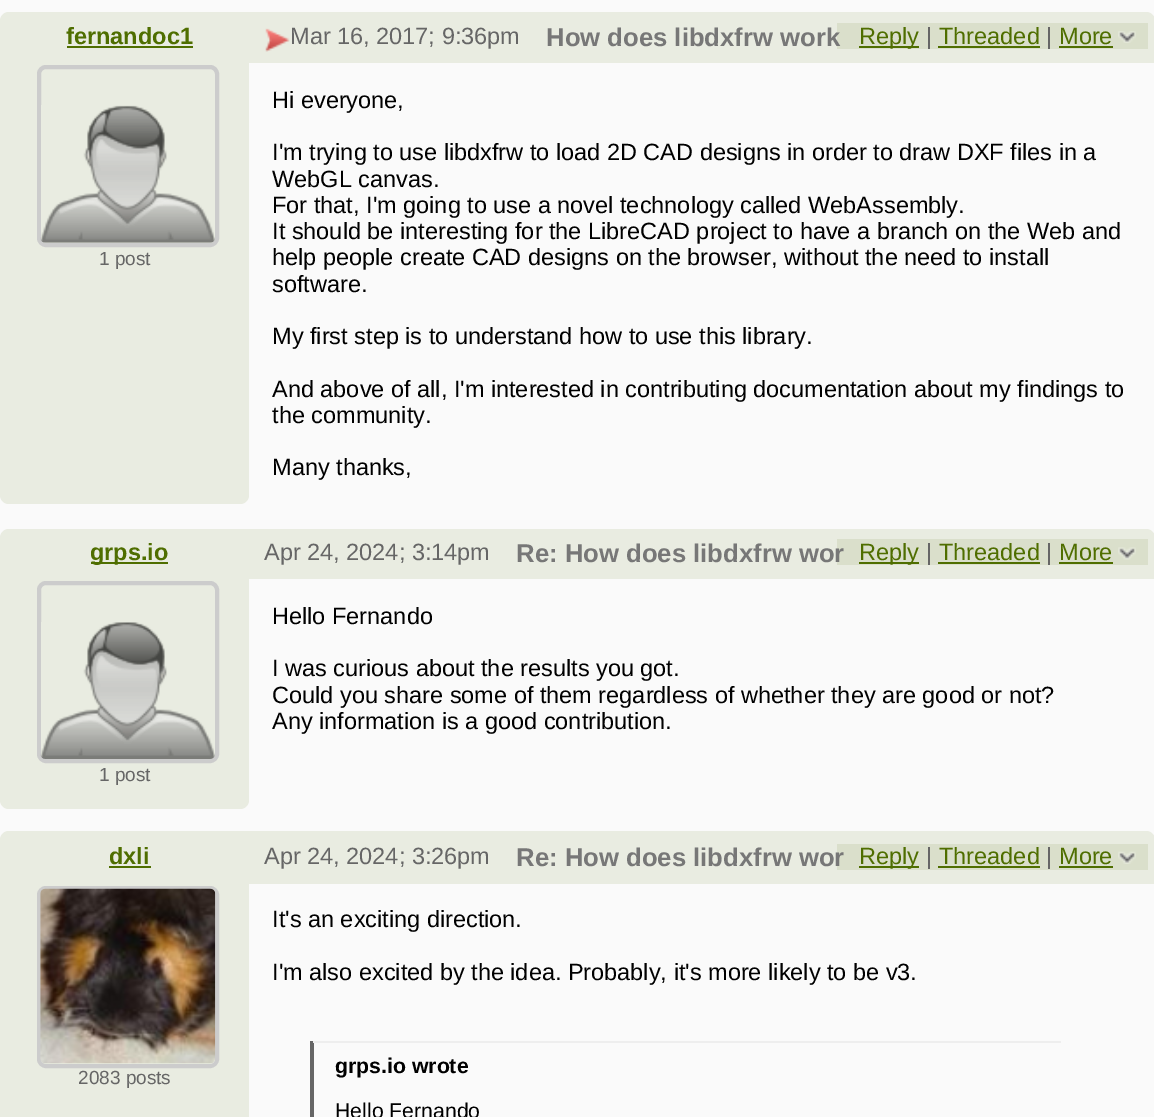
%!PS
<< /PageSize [1154 1117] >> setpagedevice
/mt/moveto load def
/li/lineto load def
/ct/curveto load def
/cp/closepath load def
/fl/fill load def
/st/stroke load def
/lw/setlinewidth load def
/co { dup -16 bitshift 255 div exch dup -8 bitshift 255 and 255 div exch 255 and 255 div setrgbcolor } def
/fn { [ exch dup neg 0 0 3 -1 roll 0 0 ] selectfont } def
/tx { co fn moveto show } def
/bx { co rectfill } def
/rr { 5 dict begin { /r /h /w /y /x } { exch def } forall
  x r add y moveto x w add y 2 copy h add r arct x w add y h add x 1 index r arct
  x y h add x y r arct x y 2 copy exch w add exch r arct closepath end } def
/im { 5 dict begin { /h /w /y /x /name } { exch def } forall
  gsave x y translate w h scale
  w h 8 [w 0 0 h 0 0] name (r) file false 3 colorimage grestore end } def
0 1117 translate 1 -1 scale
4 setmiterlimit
0 0 1154 1117 16#FAFAFA bx
16#E9ECE1 co
9 12 mt 1146 12 li 1151 12 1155 16 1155 21 ct 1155 63 li 0 63 li 0 21 li 0 16 4 12 9 12 ct cp fl
67 46 126 2 16#4F6E00 bx
(media/1.raw) 265 28 25 24 im
837 23 311 26 16#DADFCB bx
859 46 60 2 16#4F6E00 bx
938 46 102 2 16#4F6E00 bx
1059 46 54 2 16#4F6E00 bx
(media/2.raw) 1118 31 18 12 im
16#E9ECE1 co
0 63 mt 249 63 li 249 495 li 249 500 245 504 240 504 ct 9 504 li 4 504 0 500 0 495 ct cp fl
16#CCCCCC co
4 lw
39 67 178 178 7 rr st
(media/3.raw) 40 105 175 138 im
16#E9ECE1 co
9 529 mt 1146 529 li 1151 529 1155 533 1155 538 ct 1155 579 li 0 579 li 0 538 li 0 533 4 529 9 529 ct cp fl
91 562 77 2 16#4F6E00 bx
837 539 311 26 16#DADFCB bx
859 562 60 2 16#4F6E00 bx
938 562 102 2 16#4F6E00 bx
1059 562 54 2 16#4F6E00 bx
(media/4.raw) 1118 547 18 13 im
16#E9ECE1 co
0 579 mt 249 579 li 249 800 li 249 805 245 809 240 809 ct 9 809 li 4 809 0 805 0 800 ct cp fl
16#CCCCCC co
39 583 178 178 7 rr st
(media/5.raw) 40 622 175 137 im
16#E9ECE1 co
9 831 mt 1146 831 li 1151 831 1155 835 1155 840 ct 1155 884 li 0 884 li 0 840 li 0 835 4 831 9 831 ct cp fl
109 866 42 2 16#4F6E00 bx
837 844 311 26 16#DADFCB bx
859 866 60 2 16#4F6E00 bx
938 866 102 2 16#4F6E00 bx
1059 866 54 2 16#4F6E00 bx
(media/6.raw) 1118 851 18 13 im
0 884 249 233 16#E9ECE1 bx
16#CCCCCC co
39 888 178 178 7 rr st
(media/7.raw) 40 888 176 176 im
310 1041 4 76 16#666666 bx
313 1041 748 2 16#EEEEEE bx
(fernandoc1) 66 44 /LiberationSans-Bold 23.5 16#4F6E00 tx
(Mar 16, 2017; 9:36pm) 290 44 /LiberationSans-Regular 23.5 16#666666 tx
(How does libdxfrw work) 546 46 /LiberationSans-Bold 25.7 16#777777 tx
(Reply) 859 44 /LiberationSans-Regular 23.5 16#4F6E00 tx
(|) 926 44 /LiberationSans-Regular 23.5 16#666666 tx
(Threaded) 939 44 /LiberationSans-Regular 23.5 16#4F6E00 tx
(|) 1046 44 /LiberationSans-Regular 23.5 16#666666 tx
(More) 1059 44 /LiberationSans-Regular 23.5 16#4F6E00 tx
(1 post) 99 265 /LiberationSans-Regular 19 16#666666 tx
(Hi everyone,) 272 108 /LiberationSans-Regular 23.5 16#000000 tx
(I'm trying to use libdxfrw to load 2D CAD designs in order to draw DXF files in a) 272 160 /LiberationSans-Regular 23.5 16#000000 tx
(WebGL canvas.) 272 187 /LiberationSans-Regular 23.5 16#000000 tx
(For that, I'm going to use a novel technology called WebAssembly.) 272 213 /LiberationSans-Regular 23.5 16#000000 tx
(It should be interesting for the LibreCAD project to have a branch on the Web and) 272 239 /LiberationSans-Regular 23.5 16#000000 tx
(help people create CAD designs on the browser, without the need to install) 272 265 /LiberationSans-Regular 23.5 16#000000 tx
(software.) 272 292 /LiberationSans-Regular 23.5 16#000000 tx
(My first step is to understand how to use this library.) 272 344 /LiberationSans-Regular 23.5 16#000000 tx
(And above of all, I'm interested in contributing documentation about my findings to) 272 397 /LiberationSans-Regular 23.5 16#000000 tx
(the community.) 272 423 /LiberationSans-Regular 23.5 16#000000 tx
(Many thanks,) 272 475 /LiberationSans-Regular 23.5 16#000000 tx
(grps.io) 90 560 /LiberationSans-Bold 23.5 16#4F6E00 tx
(Apr 24, 2024; 3:14pm) 264 560 /LiberationSans-Regular 23.5 16#666666 tx
(Re: How does libdxfrw wor) 516 562 /LiberationSans-Bold 25.7 16#777777 tx
(Reply) 859 560 /LiberationSans-Regular 23.5 16#4F6E00 tx
(|) 926 560 /LiberationSans-Regular 23.5 16#666666 tx
(Threaded) 939 560 /LiberationSans-Regular 23.5 16#4F6E00 tx
(|) 1046 560 /LiberationSans-Regular 23.5 16#666666 tx
(More) 1059 560 /LiberationSans-Regular 23.5 16#4F6E00 tx
(Hello Fernando) 272 624 /LiberationSans-Regular 23.5 16#000000 tx
(I was curious about the results you got.) 272 676 /LiberationSans-Regular 23.5 16#000000 tx
(Could you share some of them regardless of whether they are good or not?) 272 703 /LiberationSans-Regular 23.5 16#000000 tx
(Any information is a good contribution.) 272 729 /LiberationSans-Regular 23.5 16#000000 tx
(1 post) 99 781 /LiberationSans-Regular 19 16#666666 tx
(dxli) 109 864 /LiberationSans-Bold 23.5 16#4F6E00 tx
(Apr 24, 2024; 3:26pm) 264 864 /LiberationSans-Regular 23.5 16#666666 tx
(Re: How does libdxfrw wor) 516 866 /LiberationSans-Bold 25.7 16#777777 tx
(Reply) 859 864 /LiberationSans-Regular 23.5 16#4F6E00 tx
(|) 926 864 /LiberationSans-Regular 23.5 16#666666 tx
(Threaded) 939 864 /LiberationSans-Regular 23.5 16#4F6E00 tx
(|) 1046 864 /LiberationSans-Regular 23.5 16#666666 tx
(More) 1059 864 /LiberationSans-Regular 23.5 16#4F6E00 tx
(2083 posts) 78 1084 /LiberationSans-Regular 19 16#666666 tx
(It's an exciting direction.) 272 927 /LiberationSans-Regular 23.5 16#000000 tx
(I'm also excited by the idea. Probably, it's more likely to be v3.) 272 980 /LiberationSans-Regular 23.5 16#000000 tx
(grps.io wrote) 335 1073 /LiberationSans-Bold 21.25 16#000000 tx
(Hello Fernando) 335 1118 /LiberationSans-Regular 21.25 16#000000 tx
showpage
